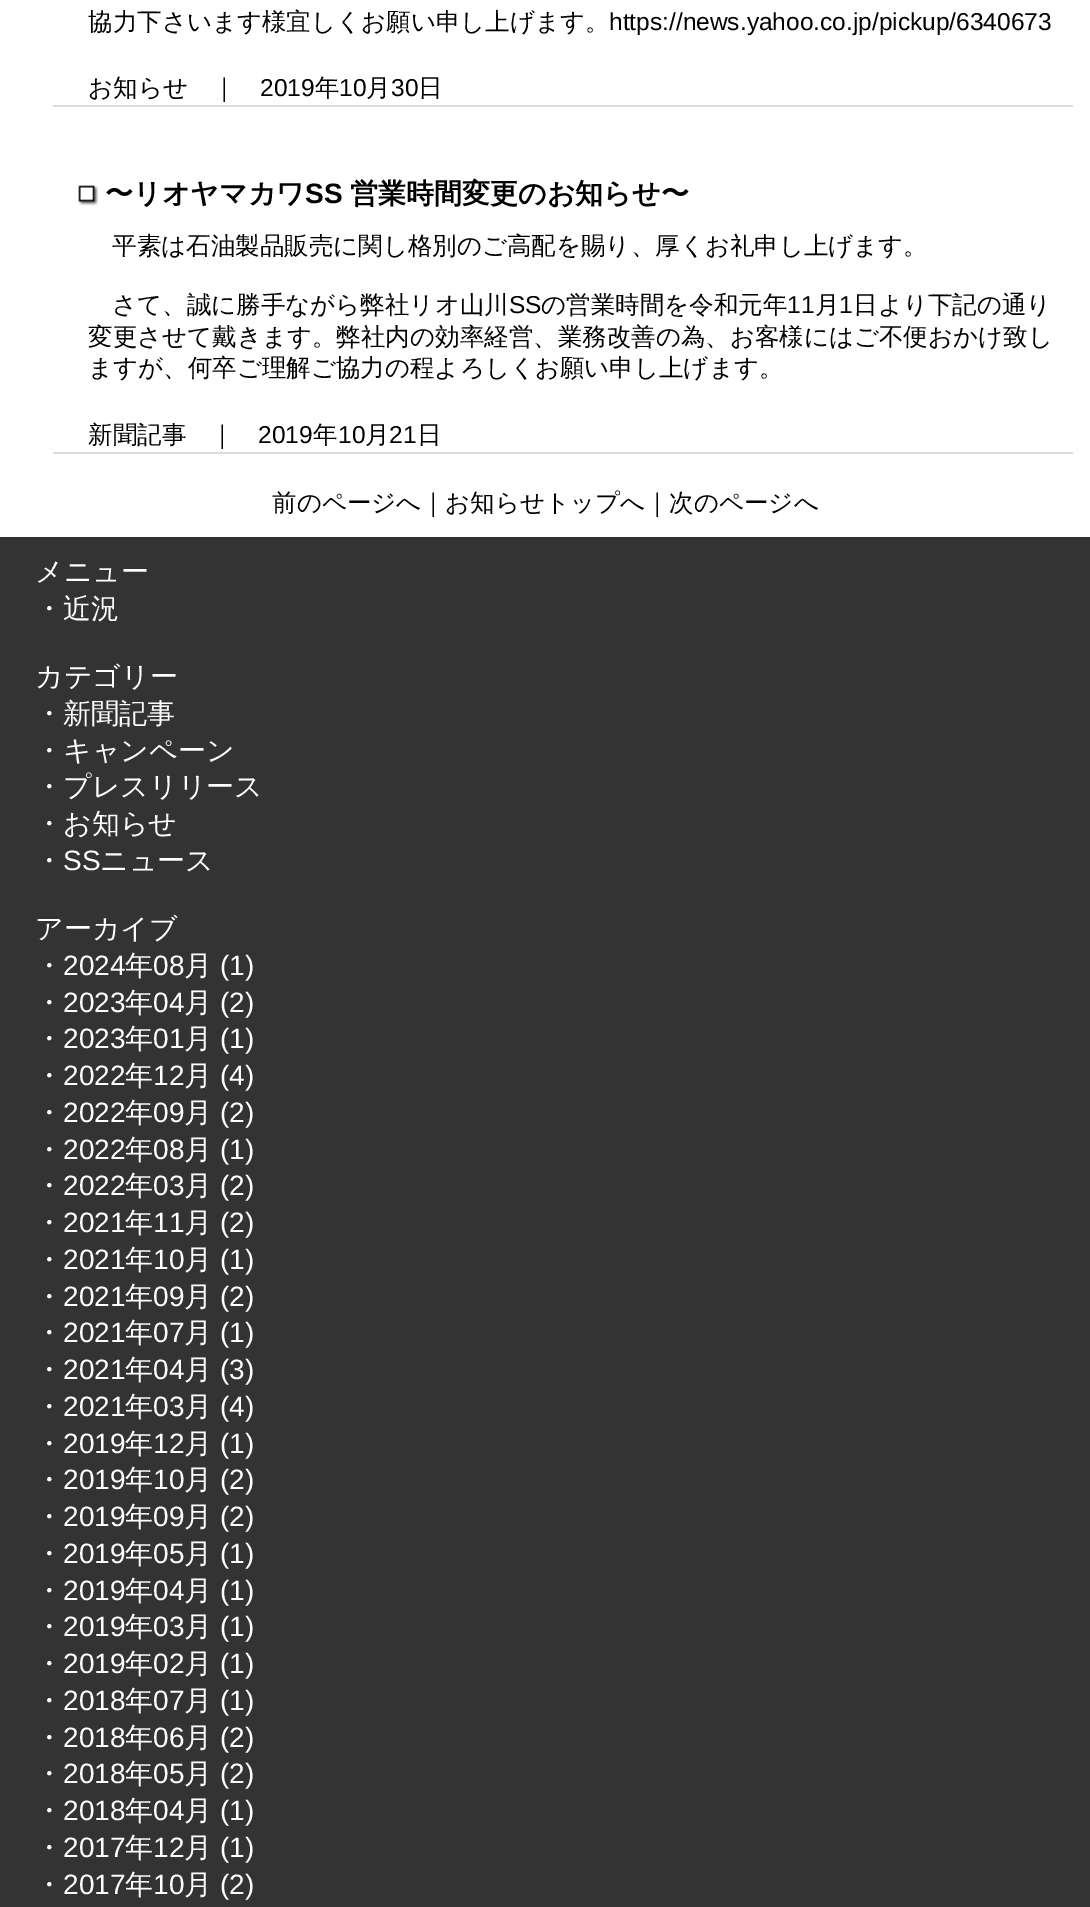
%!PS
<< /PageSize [1090 1907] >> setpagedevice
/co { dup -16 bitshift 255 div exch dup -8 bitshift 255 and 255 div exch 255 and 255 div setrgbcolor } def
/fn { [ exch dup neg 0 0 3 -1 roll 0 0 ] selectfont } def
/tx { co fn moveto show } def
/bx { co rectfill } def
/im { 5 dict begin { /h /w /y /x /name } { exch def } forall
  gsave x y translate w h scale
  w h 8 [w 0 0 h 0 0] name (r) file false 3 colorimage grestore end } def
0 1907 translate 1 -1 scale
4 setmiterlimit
0 0 1090 1907 16#FFFFFF bx
53 105 1020 2 16#DDDDDD bx
53 452 1020 2 16#DDDDDD bx
(media/1.raw) 78 185 21 21 im
0 537 1090 1370 16#333333 bx
(協力下さいます様宜しくお願い申し上げます。) 88 30 /WenQuanYiZenHei-Medium 24.5 16#000000 tx
(https://news.yahoo.co.jp/pickup/6340673) 609 30 /LiberationSans-Regular 24.5 16#000000 tx
(お知らせ) 88 96 /WenQuanYiZenHei-Medium 24.5 16#000000 tx
(｜) 212 96 /WenQuanYiZenHei-Medium 24.5 16#000000 tx
(2019) 260 96 /LiberationSans-Regular 24.5 16#000000 tx
(年) 315 96 /WenQuanYiZenHei-Medium 24.5 16#000000 tx
(10) 339 96 /LiberationSans-Regular 24.5 16#000000 tx
(月) 366 96 /WenQuanYiZenHei-Medium 24.5 16#000000 tx
(30) 391 96 /LiberationSans-Regular 24.5 16#000000 tx
(日) 418 96 /WenQuanYiZenHei-Medium 24.5 16#000000 tx
(〜リオヤマカワ) 105 203 /WenQuanYiZenHei-Bold 28 16#000000 tx
(SS) 305 203 /LiberationSans-Bold 28 16#000000 tx
(営業時間変更のお知らせ〜) 350 203 /WenQuanYiZenHei-Bold 28 16#000000 tx
(平素は石油製品販売に関し格別のご高配を賜り、厚くお礼申し上げます。) 112 254 /WenQuanYiZenHei-Medium 24.5 16#000000 tx
(さて、誠に勝手ながら弊社リオ山川) 112 313 /WenQuanYiZenHei-Medium 24.5 16#000000 tx
(SS) 509 313 /LiberationSans-Regular 24.5 16#000000 tx
(の営業時間を令和元年) 541 313 /WenQuanYiZenHei-Medium 24.5 16#000000 tx
(11) 787 313 /LiberationSans-Regular 24.5 16#000000 tx
(月) 815 313 /WenQuanYiZenHei-Medium 24.5 16#000000 tx
(1) 839 313 /LiberationSans-Regular 24.5 16#000000 tx
(日より下記の通り) 853 313 /WenQuanYiZenHei-Medium 24.5 16#000000 tx
(変更させて戴きます。弊社内の効率経営、業務改善の為、お客様にはご不便おかけ致し) 88 345 /WenQuanYiZenHei-Medium 24.5 16#000000 tx
(ますが、何卒ご理解ご協力の程よろしくお願い申し上げます。) 88 376 /WenQuanYiZenHei-Medium 24.5 16#000000 tx
(新聞記事) 88 443 /WenQuanYiZenHei-Medium 24.5 16#000000 tx
(｜) 210 443 /WenQuanYiZenHei-Medium 24.5 16#000000 tx
(2019) 258 443 /LiberationSans-Regular 24.5 16#000000 tx
(年) 313 443 /WenQuanYiZenHei-Medium 24.5 16#000000 tx
(10) 338 443 /LiberationSans-Regular 24.5 16#000000 tx
(月) 365 443 /WenQuanYiZenHei-Medium 24.5 16#000000 tx
(21) 389 443 /LiberationSans-Regular 24.5 16#000000 tx
(日) 417 443 /WenQuanYiZenHei-Medium 24.5 16#000000 tx
(前のページへ｜お知らせトップへ｜次のページへ) 272 511 /WenQuanYiZenHei-Medium 24.5 16#000000 tx
(メニュー) 35 581 /WenQuanYiZenHei-Medium 28 16#FFFFFF tx
(・近況) 35 618 /WenQuanYiZenHei-Medium 28 16#FFFFFF tx
(カテゴリー) 35 686 /WenQuanYiZenHei-Medium 28 16#FFFFFF tx
(・新聞記事) 35 723 /WenQuanYiZenHei-Medium 28 16#FFFFFF tx
(・キャンペーン) 35 760 /WenQuanYiZenHei-Medium 28 16#FFFFFF tx
(・プレスリリース) 35 796 /WenQuanYiZenHei-Medium 28 16#FFFFFF tx
(・お知らせ) 35 833 /WenQuanYiZenHei-Medium 28 16#FFFFFF tx
(・) 35 870 /WenQuanYiZenHei-Medium 28 16#FFFFFF tx
(SS) 63 870 /LiberationSans-Regular 28 16#FFFFFF tx
(ニュース) 100 870 /WenQuanYiZenHei-Medium 28 16#FFFFFF tx
(アーカイブ) 35 938 /WenQuanYiZenHei-Medium 28 16#FFFFFF tx
(・) 35 975 /WenQuanYiZenHei-Medium 28 16#FFFFFF tx
(2024) 63 975 /LiberationSans-Regular 28 16#FFFFFF tx
(年) 125 975 /WenQuanYiZenHei-Medium 28 16#FFFFFF tx
(08) 153 975 /LiberationSans-Regular 28 16#FFFFFF tx
(月) 184 975 /WenQuanYiZenHei-Medium 28 16#FFFFFF tx
(\(1\)) 220 975 /LiberationSans-Regular 28 16#FFFFFF tx
(・) 35 1012 /WenQuanYiZenHei-Medium 28 16#FFFFFF tx
(2023) 63 1012 /LiberationSans-Regular 28 16#FFFFFF tx
(年) 125 1012 /WenQuanYiZenHei-Medium 28 16#FFFFFF tx
(04) 153 1012 /LiberationSans-Regular 28 16#FFFFFF tx
(月) 184 1012 /WenQuanYiZenHei-Medium 28 16#FFFFFF tx
(\(2\)) 220 1012 /LiberationSans-Regular 28 16#FFFFFF tx
(・) 35 1048 /WenQuanYiZenHei-Medium 28 16#FFFFFF tx
(2023) 63 1048 /LiberationSans-Regular 28 16#FFFFFF tx
(年) 125 1048 /WenQuanYiZenHei-Medium 28 16#FFFFFF tx
(01) 153 1048 /LiberationSans-Regular 28 16#FFFFFF tx
(月) 184 1048 /WenQuanYiZenHei-Medium 28 16#FFFFFF tx
(\(1\)) 220 1048 /LiberationSans-Regular 28 16#FFFFFF tx
(・) 35 1085 /WenQuanYiZenHei-Medium 28 16#FFFFFF tx
(2022) 63 1085 /LiberationSans-Regular 28 16#FFFFFF tx
(年) 125 1085 /WenQuanYiZenHei-Medium 28 16#FFFFFF tx
(12) 153 1085 /LiberationSans-Regular 28 16#FFFFFF tx
(月) 184 1085 /WenQuanYiZenHei-Medium 28 16#FFFFFF tx
(\(4\)) 220 1085 /LiberationSans-Regular 28 16#FFFFFF tx
(・) 35 1122 /WenQuanYiZenHei-Medium 28 16#FFFFFF tx
(2022) 63 1122 /LiberationSans-Regular 28 16#FFFFFF tx
(年) 125 1122 /WenQuanYiZenHei-Medium 28 16#FFFFFF tx
(09) 153 1122 /LiberationSans-Regular 28 16#FFFFFF tx
(月) 184 1122 /WenQuanYiZenHei-Medium 28 16#FFFFFF tx
(\(2\)) 220 1122 /LiberationSans-Regular 28 16#FFFFFF tx
(・) 35 1159 /WenQuanYiZenHei-Medium 28 16#FFFFFF tx
(2022) 63 1159 /LiberationSans-Regular 28 16#FFFFFF tx
(年) 125 1159 /WenQuanYiZenHei-Medium 28 16#FFFFFF tx
(08) 153 1159 /LiberationSans-Regular 28 16#FFFFFF tx
(月) 184 1159 /WenQuanYiZenHei-Medium 28 16#FFFFFF tx
(\(1\)) 220 1159 /LiberationSans-Regular 28 16#FFFFFF tx
(・) 35 1195 /WenQuanYiZenHei-Medium 28 16#FFFFFF tx
(2022) 63 1195 /LiberationSans-Regular 28 16#FFFFFF tx
(年) 125 1195 /WenQuanYiZenHei-Medium 28 16#FFFFFF tx
(03) 153 1195 /LiberationSans-Regular 28 16#FFFFFF tx
(月) 184 1195 /WenQuanYiZenHei-Medium 28 16#FFFFFF tx
(\(2\)) 220 1195 /LiberationSans-Regular 28 16#FFFFFF tx
(・) 35 1232 /WenQuanYiZenHei-Medium 28 16#FFFFFF tx
(2021) 63 1232 /LiberationSans-Regular 28 16#FFFFFF tx
(年) 125 1232 /WenQuanYiZenHei-Medium 28 16#FFFFFF tx
(11) 153 1232 /LiberationSans-Regular 28 16#FFFFFF tx
(月) 184 1232 /WenQuanYiZenHei-Medium 28 16#FFFFFF tx
(\(2\)) 220 1232 /LiberationSans-Regular 28 16#FFFFFF tx
(・) 35 1269 /WenQuanYiZenHei-Medium 28 16#FFFFFF tx
(2021) 63 1269 /LiberationSans-Regular 28 16#FFFFFF tx
(年) 125 1269 /WenQuanYiZenHei-Medium 28 16#FFFFFF tx
(10) 153 1269 /LiberationSans-Regular 28 16#FFFFFF tx
(月) 184 1269 /WenQuanYiZenHei-Medium 28 16#FFFFFF tx
(\(1\)) 220 1269 /LiberationSans-Regular 28 16#FFFFFF tx
(・) 35 1306 /WenQuanYiZenHei-Medium 28 16#FFFFFF tx
(2021) 63 1306 /LiberationSans-Regular 28 16#FFFFFF tx
(年) 125 1306 /WenQuanYiZenHei-Medium 28 16#FFFFFF tx
(09) 153 1306 /LiberationSans-Regular 28 16#FFFFFF tx
(月) 184 1306 /WenQuanYiZenHei-Medium 28 16#FFFFFF tx
(\(2\)) 220 1306 /LiberationSans-Regular 28 16#FFFFFF tx
(・) 35 1342 /WenQuanYiZenHei-Medium 28 16#FFFFFF tx
(2021) 63 1342 /LiberationSans-Regular 28 16#FFFFFF tx
(年) 125 1342 /WenQuanYiZenHei-Medium 28 16#FFFFFF tx
(07) 153 1342 /LiberationSans-Regular 28 16#FFFFFF tx
(月) 184 1342 /WenQuanYiZenHei-Medium 28 16#FFFFFF tx
(\(1\)) 220 1342 /LiberationSans-Regular 28 16#FFFFFF tx
(・) 35 1379 /WenQuanYiZenHei-Medium 28 16#FFFFFF tx
(2021) 63 1379 /LiberationSans-Regular 28 16#FFFFFF tx
(年) 125 1379 /WenQuanYiZenHei-Medium 28 16#FFFFFF tx
(04) 153 1379 /LiberationSans-Regular 28 16#FFFFFF tx
(月) 184 1379 /WenQuanYiZenHei-Medium 28 16#FFFFFF tx
(\(3\)) 220 1379 /LiberationSans-Regular 28 16#FFFFFF tx
(・) 35 1416 /WenQuanYiZenHei-Medium 28 16#FFFFFF tx
(2021) 63 1416 /LiberationSans-Regular 28 16#FFFFFF tx
(年) 125 1416 /WenQuanYiZenHei-Medium 28 16#FFFFFF tx
(03) 153 1416 /LiberationSans-Regular 28 16#FFFFFF tx
(月) 184 1416 /WenQuanYiZenHei-Medium 28 16#FFFFFF tx
(\(4\)) 220 1416 /LiberationSans-Regular 28 16#FFFFFF tx
(・) 35 1453 /WenQuanYiZenHei-Medium 28 16#FFFFFF tx
(2019) 63 1453 /LiberationSans-Regular 28 16#FFFFFF tx
(年) 125 1453 /WenQuanYiZenHei-Medium 28 16#FFFFFF tx
(12) 153 1453 /LiberationSans-Regular 28 16#FFFFFF tx
(月) 184 1453 /WenQuanYiZenHei-Medium 28 16#FFFFFF tx
(\(1\)) 220 1453 /LiberationSans-Regular 28 16#FFFFFF tx
(・) 35 1489 /WenQuanYiZenHei-Medium 28 16#FFFFFF tx
(2019) 63 1489 /LiberationSans-Regular 28 16#FFFFFF tx
(年) 125 1489 /WenQuanYiZenHei-Medium 28 16#FFFFFF tx
(10) 153 1489 /LiberationSans-Regular 28 16#FFFFFF tx
(月) 184 1489 /WenQuanYiZenHei-Medium 28 16#FFFFFF tx
(\(2\)) 220 1489 /LiberationSans-Regular 28 16#FFFFFF tx
(・) 35 1526 /WenQuanYiZenHei-Medium 28 16#FFFFFF tx
(2019) 63 1526 /LiberationSans-Regular 28 16#FFFFFF tx
(年) 125 1526 /WenQuanYiZenHei-Medium 28 16#FFFFFF tx
(09) 153 1526 /LiberationSans-Regular 28 16#FFFFFF tx
(月) 184 1526 /WenQuanYiZenHei-Medium 28 16#FFFFFF tx
(\(2\)) 220 1526 /LiberationSans-Regular 28 16#FFFFFF tx
(・) 35 1563 /WenQuanYiZenHei-Medium 28 16#FFFFFF tx
(2019) 63 1563 /LiberationSans-Regular 28 16#FFFFFF tx
(年) 125 1563 /WenQuanYiZenHei-Medium 28 16#FFFFFF tx
(05) 153 1563 /LiberationSans-Regular 28 16#FFFFFF tx
(月) 184 1563 /WenQuanYiZenHei-Medium 28 16#FFFFFF tx
(\(1\)) 220 1563 /LiberationSans-Regular 28 16#FFFFFF tx
(・) 35 1600 /WenQuanYiZenHei-Medium 28 16#FFFFFF tx
(2019) 63 1600 /LiberationSans-Regular 28 16#FFFFFF tx
(年) 125 1600 /WenQuanYiZenHei-Medium 28 16#FFFFFF tx
(04) 153 1600 /LiberationSans-Regular 28 16#FFFFFF tx
(月) 184 1600 /WenQuanYiZenHei-Medium 28 16#FFFFFF tx
(\(1\)) 220 1600 /LiberationSans-Regular 28 16#FFFFFF tx
(・) 35 1636 /WenQuanYiZenHei-Medium 28 16#FFFFFF tx
(2019) 63 1636 /LiberationSans-Regular 28 16#FFFFFF tx
(年) 125 1636 /WenQuanYiZenHei-Medium 28 16#FFFFFF tx
(03) 153 1636 /LiberationSans-Regular 28 16#FFFFFF tx
(月) 184 1636 /WenQuanYiZenHei-Medium 28 16#FFFFFF tx
(\(1\)) 220 1636 /LiberationSans-Regular 28 16#FFFFFF tx
(・) 35 1673 /WenQuanYiZenHei-Medium 28 16#FFFFFF tx
(2019) 63 1673 /LiberationSans-Regular 28 16#FFFFFF tx
(年) 125 1673 /WenQuanYiZenHei-Medium 28 16#FFFFFF tx
(02) 153 1673 /LiberationSans-Regular 28 16#FFFFFF tx
(月) 184 1673 /WenQuanYiZenHei-Medium 28 16#FFFFFF tx
(\(1\)) 220 1673 /LiberationSans-Regular 28 16#FFFFFF tx
(・) 35 1710 /WenQuanYiZenHei-Medium 28 16#FFFFFF tx
(2018) 63 1710 /LiberationSans-Regular 28 16#FFFFFF tx
(年) 125 1710 /WenQuanYiZenHei-Medium 28 16#FFFFFF tx
(07) 153 1710 /LiberationSans-Regular 28 16#FFFFFF tx
(月) 184 1710 /WenQuanYiZenHei-Medium 28 16#FFFFFF tx
(\(1\)) 220 1710 /LiberationSans-Regular 28 16#FFFFFF tx
(・) 35 1747 /WenQuanYiZenHei-Medium 28 16#FFFFFF tx
(2018) 63 1747 /LiberationSans-Regular 28 16#FFFFFF tx
(年) 125 1747 /WenQuanYiZenHei-Medium 28 16#FFFFFF tx
(06) 153 1747 /LiberationSans-Regular 28 16#FFFFFF tx
(月) 184 1747 /WenQuanYiZenHei-Medium 28 16#FFFFFF tx
(\(2\)) 220 1747 /LiberationSans-Regular 28 16#FFFFFF tx
(・) 35 1783 /WenQuanYiZenHei-Medium 28 16#FFFFFF tx
(2018) 63 1783 /LiberationSans-Regular 28 16#FFFFFF tx
(年) 125 1783 /WenQuanYiZenHei-Medium 28 16#FFFFFF tx
(05) 153 1783 /LiberationSans-Regular 28 16#FFFFFF tx
(月) 184 1783 /WenQuanYiZenHei-Medium 28 16#FFFFFF tx
(\(2\)) 220 1783 /LiberationSans-Regular 28 16#FFFFFF tx
(・) 35 1820 /WenQuanYiZenHei-Medium 28 16#FFFFFF tx
(2018) 63 1820 /LiberationSans-Regular 28 16#FFFFFF tx
(年) 125 1820 /WenQuanYiZenHei-Medium 28 16#FFFFFF tx
(04) 153 1820 /LiberationSans-Regular 28 16#FFFFFF tx
(月) 184 1820 /WenQuanYiZenHei-Medium 28 16#FFFFFF tx
(\(1\)) 220 1820 /LiberationSans-Regular 28 16#FFFFFF tx
(・) 35 1857 /WenQuanYiZenHei-Medium 28 16#FFFFFF tx
(2017) 63 1857 /LiberationSans-Regular 28 16#FFFFFF tx
(年) 125 1857 /WenQuanYiZenHei-Medium 28 16#FFFFFF tx
(12) 153 1857 /LiberationSans-Regular 28 16#FFFFFF tx
(月) 184 1857 /WenQuanYiZenHei-Medium 28 16#FFFFFF tx
(\(1\)) 220 1857 /LiberationSans-Regular 28 16#FFFFFF tx
(・) 35 1894 /WenQuanYiZenHei-Medium 28 16#FFFFFF tx
(2017) 63 1894 /LiberationSans-Regular 28 16#FFFFFF tx
(年) 125 1894 /WenQuanYiZenHei-Medium 28 16#FFFFFF tx
(10) 153 1894 /LiberationSans-Regular 28 16#FFFFFF tx
(月) 184 1894 /WenQuanYiZenHei-Medium 28 16#FFFFFF tx
(\(2\)) 220 1894 /LiberationSans-Regular 28 16#FFFFFF tx
showpage
